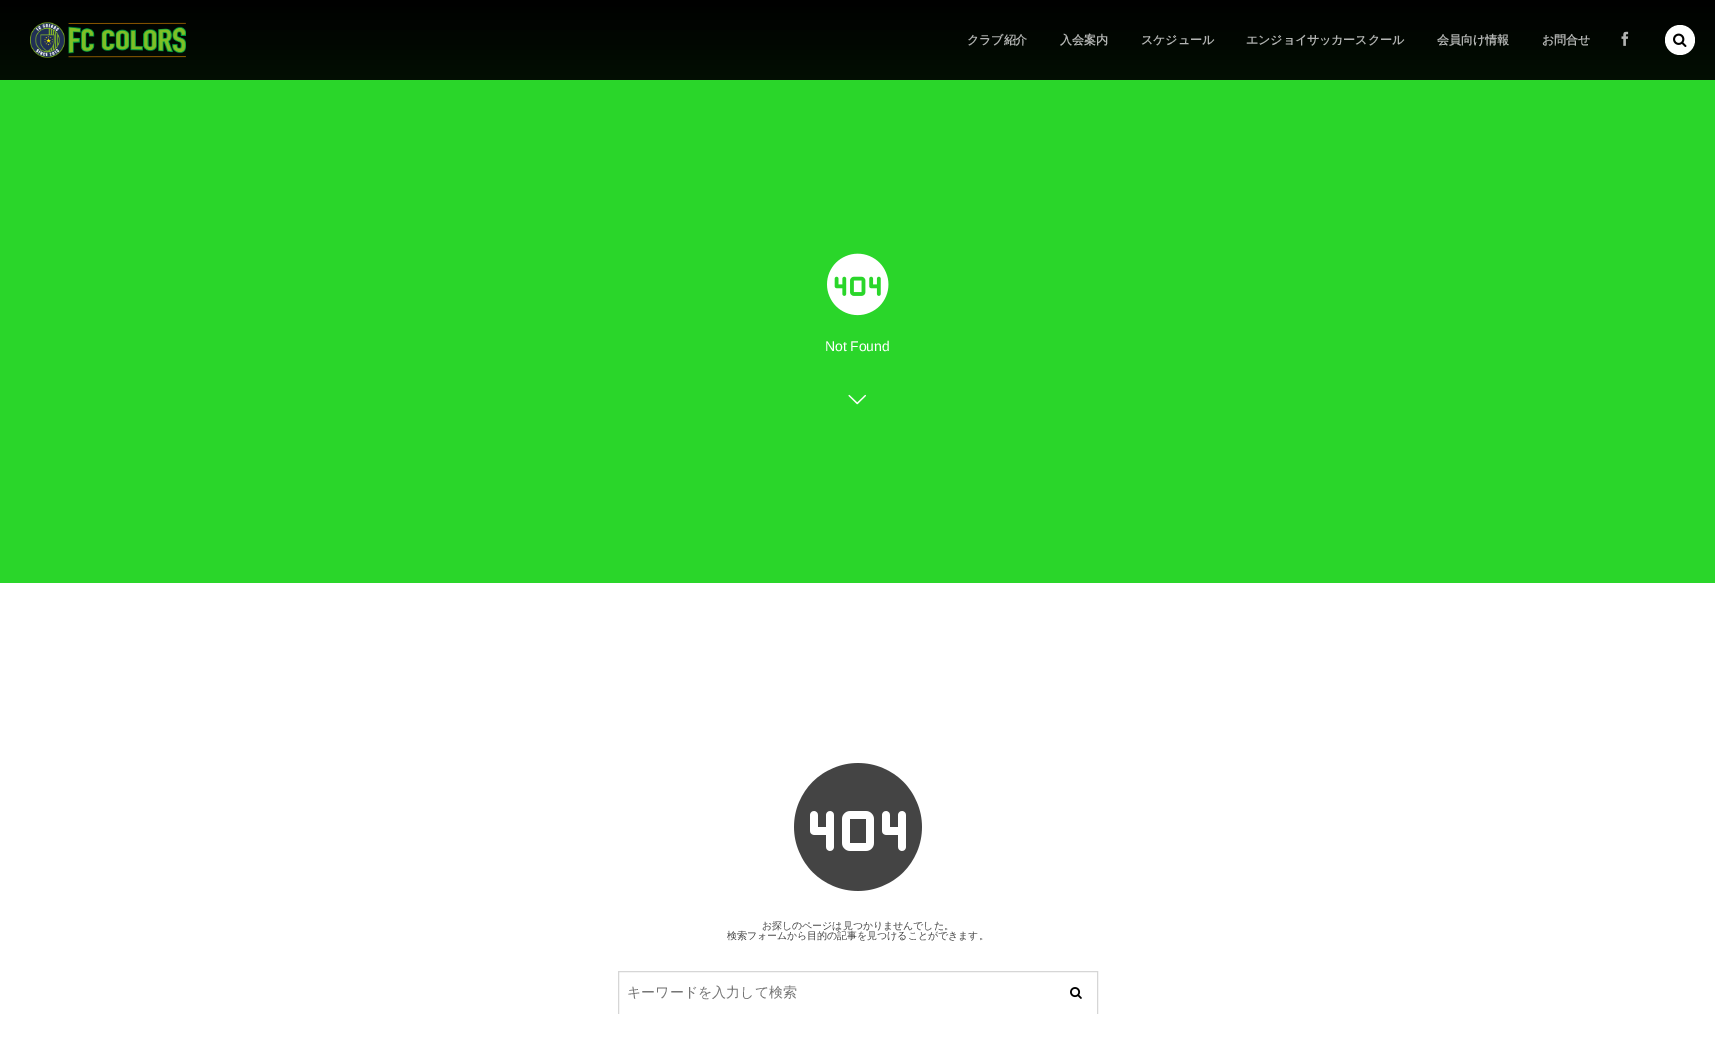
%!PS
<< /PageSize [1715 1044] >> setpagedevice
/mt/moveto load def
/li/lineto load def
/cp/closepath load def
/fl/fill load def
/gs/gsave load def
/gr/grestore load def
/co { dup -16 bitshift 255 div exch dup -8 bitshift 255 and 255 div exch 255 and 255 div setrgbcolor } def
/fn { [ exch dup neg 0 0 3 -1 roll 0 0 ] selectfont } def
/tx { co fn moveto show } def
/bx { co rectfill } def
/ci { newpath 0 360 arc closepath } def
/im { 5 dict begin { /h /w /y /x /name } { exch def } forall
  gsave x y translate w h scale
  w h 8 [w 0 0 h 0 0] name (r) file false 3 colorimage grestore end } def
0 1044 translate 1 -1 scale
4 setmiterlimit
0 0 1715 1044 16#FFFFFF bx
gs 0 0 mt 1715 0 li 1715 80 li 0 80 li cp clip newpath
<< /ShadingType 2 /ColorSpace /DeviceRGB /Coords [858 0 858 80] /Extend [true true] /Function << /FunctionType 3 /Domain [0 1] /Functions [<< /FunctionType 2 /Domain [0 1] /C0 [0 .004 0] /C1 [.004 .02 .004] /N 1 >> << /FunctionType 2 /Domain [0 1] /C0 [.004 .02 .004] /C1 [.012 .059 .012] /N 1 >>] /Bounds [.38] /Encode [0 1 0 1] >> >> shfill gr
(media/1.raw) 30 22 156 36 im
(media/2.raw) 1621 31 8 15 im
1680 40 15 ci fl
(media/3.raw) 1673 33 14 14 im
0 80 1715 503 16#2AD62A bx
(media/4.raw) 827 253 62 63 im
(media/5.raw) 848 394 18 11 im
(media/6.raw) 794 763 128 128 im
gs
0 0 1715 1014 rectclip
16#D6D6D6 co
618.5 971.5 479 43 rectstroke
gr
(media/7.raw) 1070 987 12 12 im
/WenQuanYiZenHei-Bold 12 fn
16#B3B5B3 co
967 44 mt -.1 0 (クラブ紹介) ashow
1060 44 mt -.1 0 (入会案内) ashow
1141 44 mt -.1 0 (スケジュール) ashow
1246 44 mt -.1 0 (エンジョイサッカースクール) ashow
1437 44 mt -.1 0 (会員向け情報) ashow
1542 44 mt -.1 0 (お問合せ) ashow
/LiberationSans-Regular 14 fn
16#FFFFFF co
825 351 mt -.1 0 (Not Found) ashow
/WenQuanYiZenHei-Medium 10 fn
16#444444 co
762 929 mt -.1 0 (お探しのページは見つかりませんでした。) ashow
727 939 mt -.1 0 (検索フォームから目的の記事を見つけることができます。) ashow
(キーワードを入力して検索) 627 997 /WenQuanYiZenHei-Medium 14 16#757575 tx
showpage
